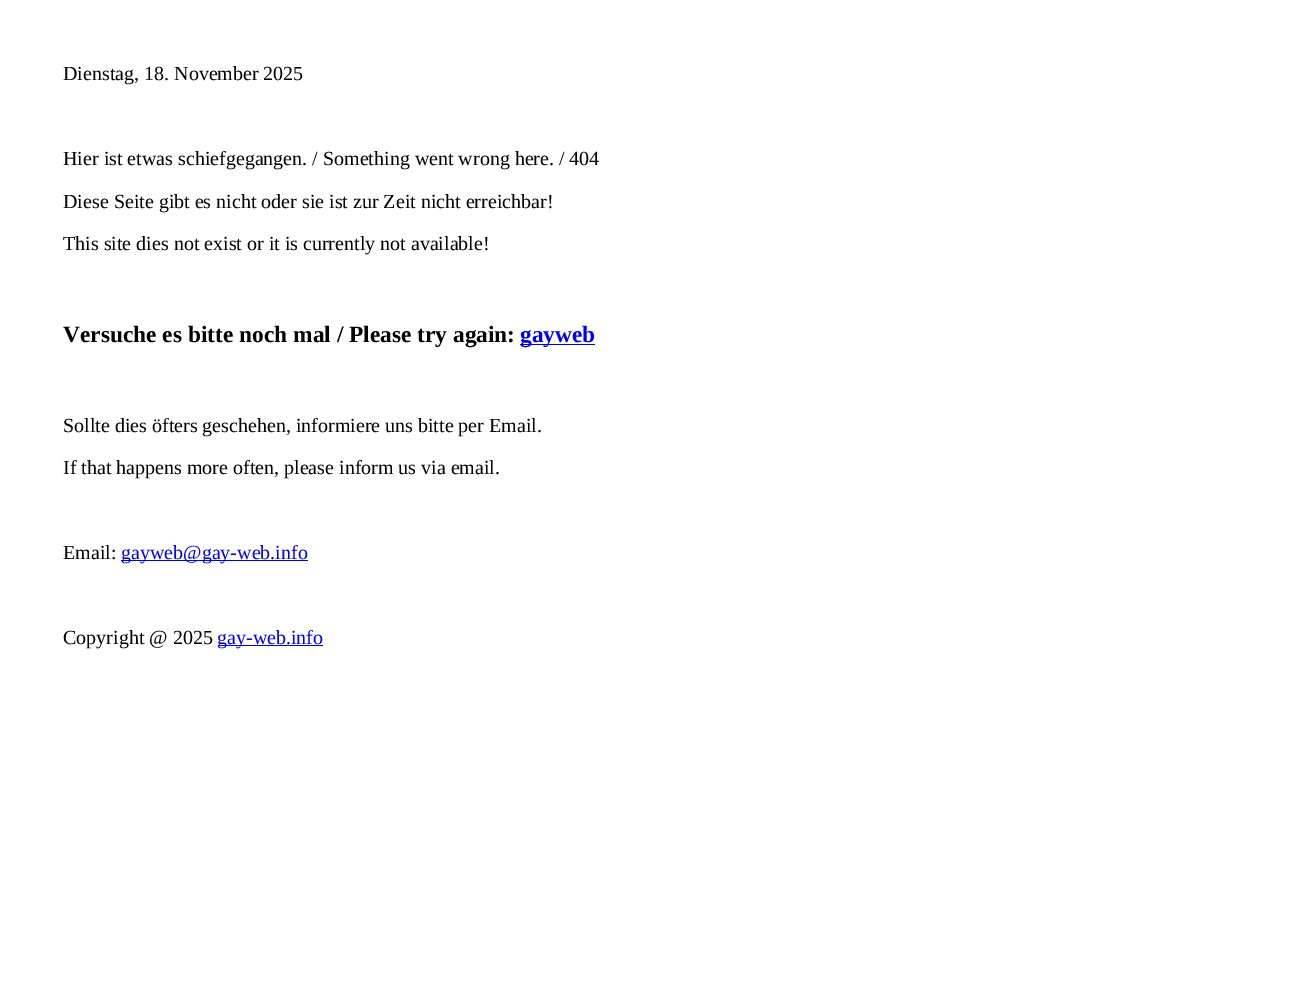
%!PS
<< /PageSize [1295 1001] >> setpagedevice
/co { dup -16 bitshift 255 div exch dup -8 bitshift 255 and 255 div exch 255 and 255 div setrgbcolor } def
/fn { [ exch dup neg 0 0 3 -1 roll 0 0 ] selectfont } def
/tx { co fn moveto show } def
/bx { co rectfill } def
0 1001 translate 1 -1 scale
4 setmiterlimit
0 0 1295 1001 16#FFFFFF bx
520 344 75 1 16#0000EE bx
121 560 187 1 16#0000EE bx
218 645 105 1 16#0000EE bx
(Dienstag, 18. November 2025) 63 80 /LiberationSerif-Regular 20 16#000000 tx
(Hier ist etwas schiefgegangen. / Something went wrong here. / 404) 63 165 /LiberationSerif-Regular 20 16#000000 tx
(Diese Seite gibt es nicht oder sie ist zur Zeit nicht erreichbar!) 63 208 /LiberationSerif-Regular 20 16#000000 tx
(This site dies not exist or it is currently not available!) 63 250 /LiberationSerif-Regular 20 16#000000 tx
(Versuche es bitte noch mal / Please try again:) 63 342 /LiberationSerif-Bold 23.4 16#000000 tx
(gayweb) 520 342 /LiberationSerif-Bold 23.4 16#0000EE tx
(Sollte dies öfters geschehen, informiere uns bitte per Email.) 63 432 /LiberationSerif-Regular 20 16#000000 tx
(If that happens more often, please inform us via email.) 63 474 /LiberationSerif-Regular 20 16#000000 tx
(Email:) 63 559 /LiberationSerif-Regular 20 16#000000 tx
(gayweb@gay-web.info) 121 559 /LiberationSerif-Regular 20 16#0000EE tx
(Copyright @ 2025) 63 644 /LiberationSerif-Regular 20 16#000000 tx
(gay-web.info) 217 644 /LiberationSerif-Regular 20 16#0000EE tx
showpage
